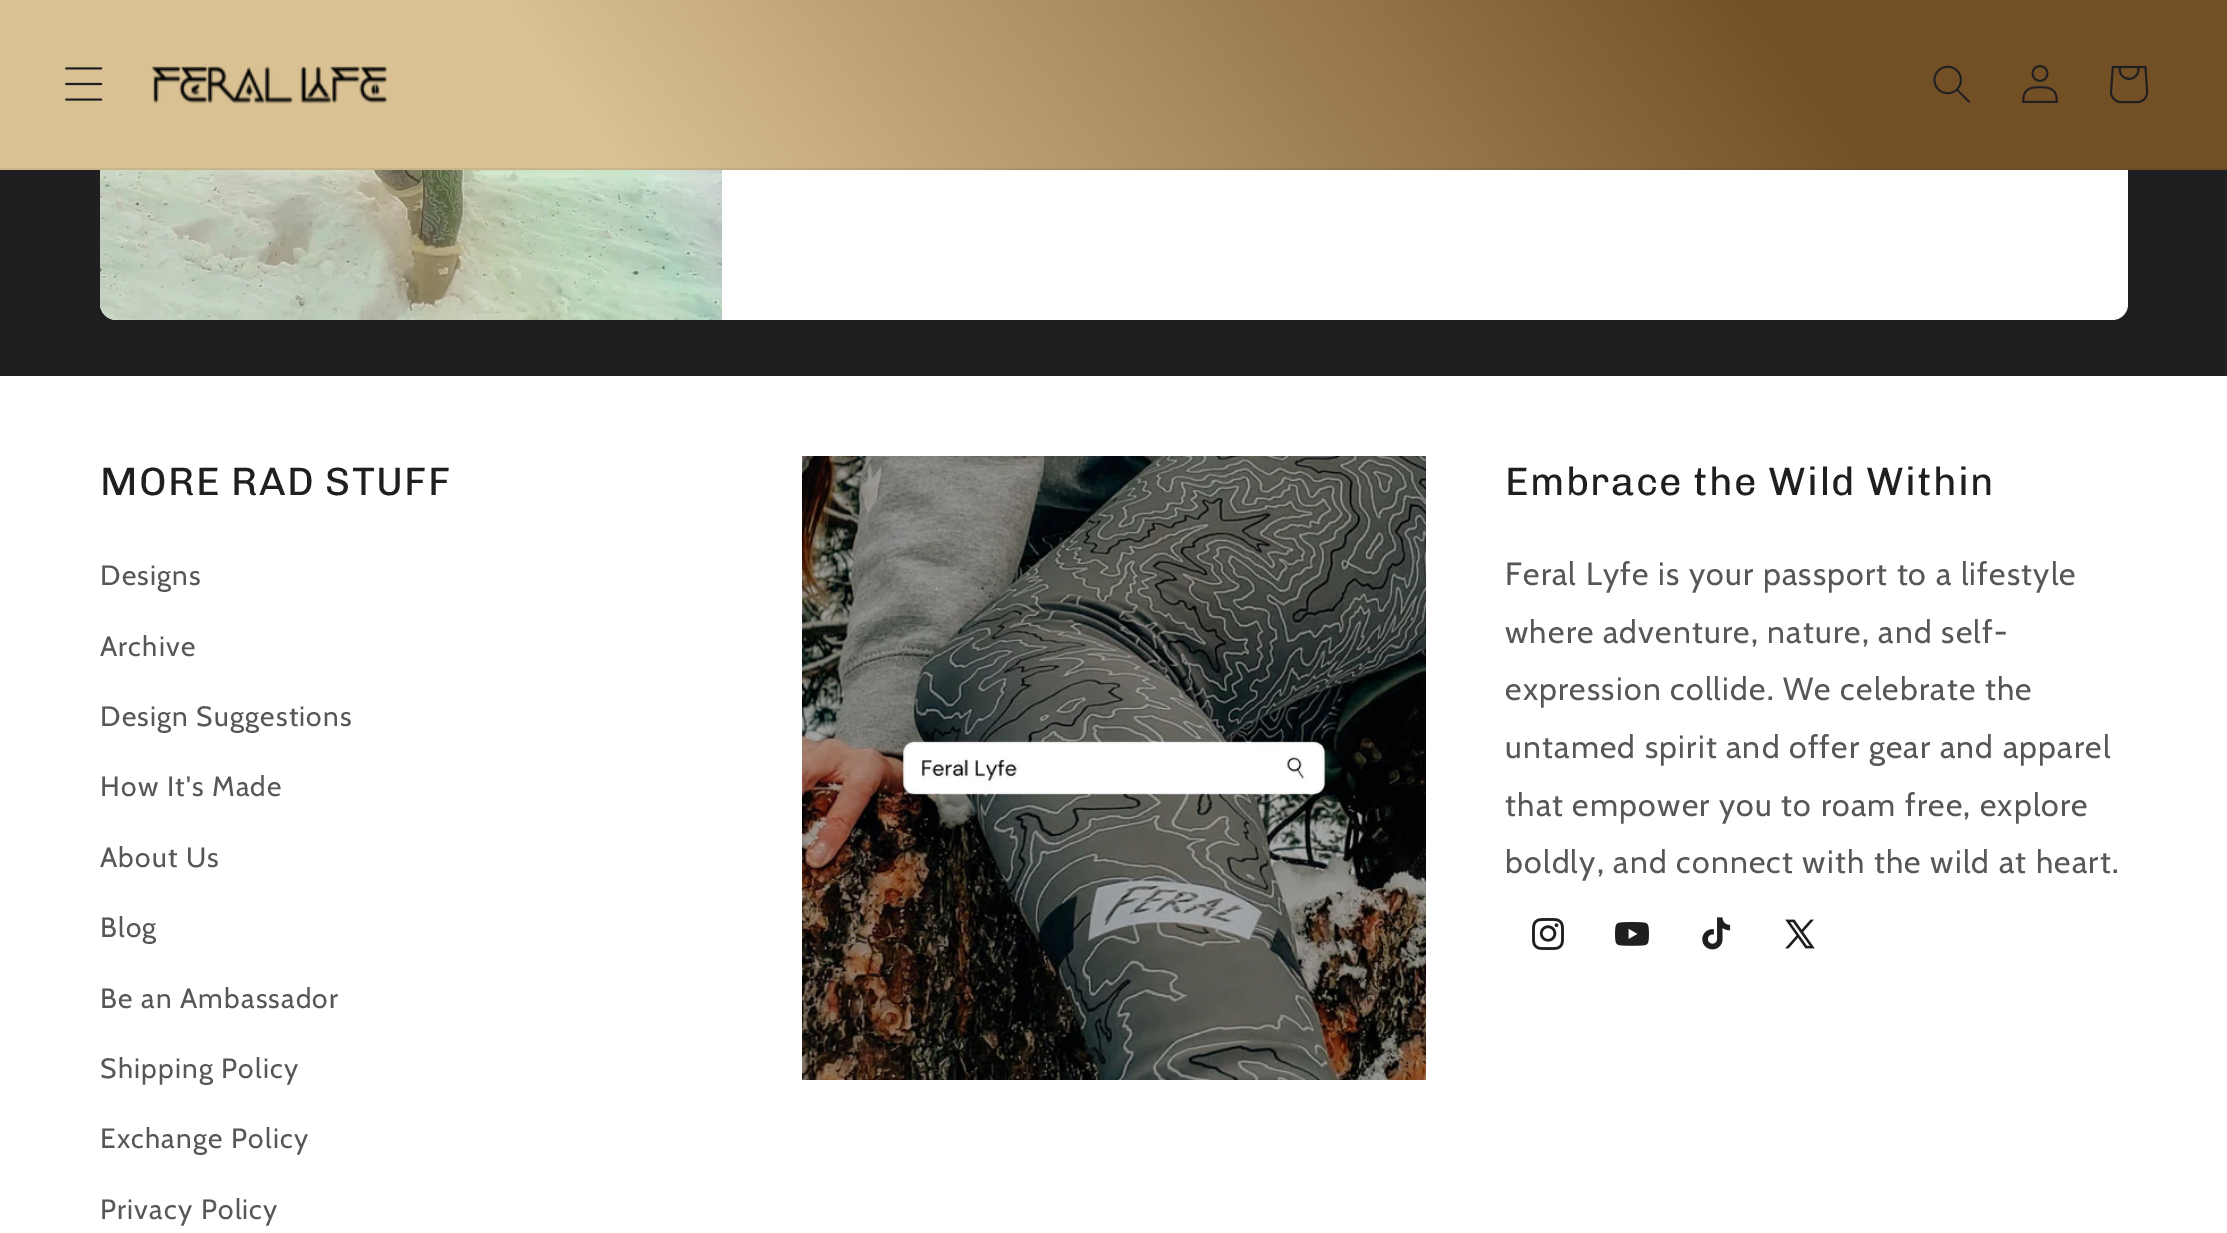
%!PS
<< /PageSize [2227 1233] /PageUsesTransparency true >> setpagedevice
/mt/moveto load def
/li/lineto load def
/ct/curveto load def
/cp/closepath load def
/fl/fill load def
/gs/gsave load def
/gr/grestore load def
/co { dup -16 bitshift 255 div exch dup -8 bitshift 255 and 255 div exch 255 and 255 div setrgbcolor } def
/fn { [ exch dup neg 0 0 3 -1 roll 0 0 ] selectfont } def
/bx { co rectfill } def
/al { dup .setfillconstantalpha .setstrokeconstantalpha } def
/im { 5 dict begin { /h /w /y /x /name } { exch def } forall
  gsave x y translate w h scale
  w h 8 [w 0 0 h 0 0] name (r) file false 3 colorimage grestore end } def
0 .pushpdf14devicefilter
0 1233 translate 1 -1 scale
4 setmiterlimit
0 0 2227 1233 16#1F1F21 bx
16#FFFFFF co
116 -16 mt 722 -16 li 722 320 li 116 320 li 107 320 100 313 100 304 ct 100 0 li 100 -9 107 -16 116 -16 ct cp fl
(media/1.raw) 100 170 622 150 im
722 -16 mt 2112 -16 li 2121 -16 2128 -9 2128 0 ct 2128 304 li 2128 313 2121 320 2112 320 ct 722 320 li cp fl
gs 0 0 mt 2227 0 li 2227 170 li 0 170 li cp clip newpath
<< /ShadingType 2 /ColorSpace /DeviceRGB /Coords [91 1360 2137 -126] /Extend [true true] /Function << /FunctionType 3 /Domain [0 1] /Functions [<< /FunctionType 2 /Domain [0 1] /C0 [.851 .757 .576] /C1 [.851 .757 .576] /N 1 >> << /FunctionType 2 /Domain [0 1] /C0 [.851 .757 .576] /C1 [.451 .31 .145] /N 1 >> << /FunctionType 2 /Domain [0 1] /C0 [.451 .31 .145] /C1 [.451 .31 .145] /N 1 >>] /Bounds [.45 .85] /Encode [0 1 0 1 0 1] >> >> shfill gr
0.08 al
0 168 2227 2 16#1F1F21 bx
1 al
(media/2.raw) 65 67 38 34 im
(media/3.raw) 151 66 236 38 im
(media/4.raw) 1933 65 37 38 im
(media/5.raw) 2022 65 36 38 im
(media/6.raw) 2110 65 39 39 im
0 376 2227 857 16#FFFFFF bx
(media/7.raw) 802 456 624 624 im
(media/8.raw) 1532 918 32 32 im
(media/9.raw) 1615 922 34 24 im
(media/10.raw) 1702 917 29 33 im
(media/11.raw) 1785 919 30 30 im
/Chivo-Regular 39.6 fn
16#1F1F21 co
100 495 mt 1.3 0 (MORE RAD STUFF) ashow
/Cabin-Regular 28 fn
16#575759 co
100 585 mt 1.2 0 (Designs) ashow
100 656 mt 1.2 0 (Archive) ashow
100 726 mt 1.2 0 (Design Suggestions) ashow
100 796 mt 1.2 0 (How It's Made) ashow
100 867 mt 1.2 0 (About Us) ashow
100 937 mt 1.2 0 (Blog) ashow
100 1008 mt 1.2 0 (Be an Ambassador) ashow
100 1078 mt 1.2 0 (Shipping Policy) ashow
100 1148 mt 1.2 0 (Exchange Policy) ashow
100 1219 mt 1.2 0 (Privacy Policy) ashow
/Chivo-Regular 39.6 fn
16#1F1F21 co
1505 495 mt 1.3 0 (Embrace the Wild Within) ashow
/Cabin-Regular 32 fn
16#575759 co
1505 585 mt 1.2 0 (Feral Lyfe is your passport to a lifestyle) ashow
1505 643 mt 1.2 0 (where adventure, nature, and self-) ashow
1505 700 mt 1.2 0 (expression collide. We celebrate the) ashow
1505 758 mt 1.2 0 (untamed spirit and offer gear and apparel) ashow
1505 816 mt 1.2 0 (that empower you to roam free, explore) ashow
1505 873 mt 1.2 0 (boldly, and connect with the wild at heart.) ashow
.poppdf14devicefilter showpage
